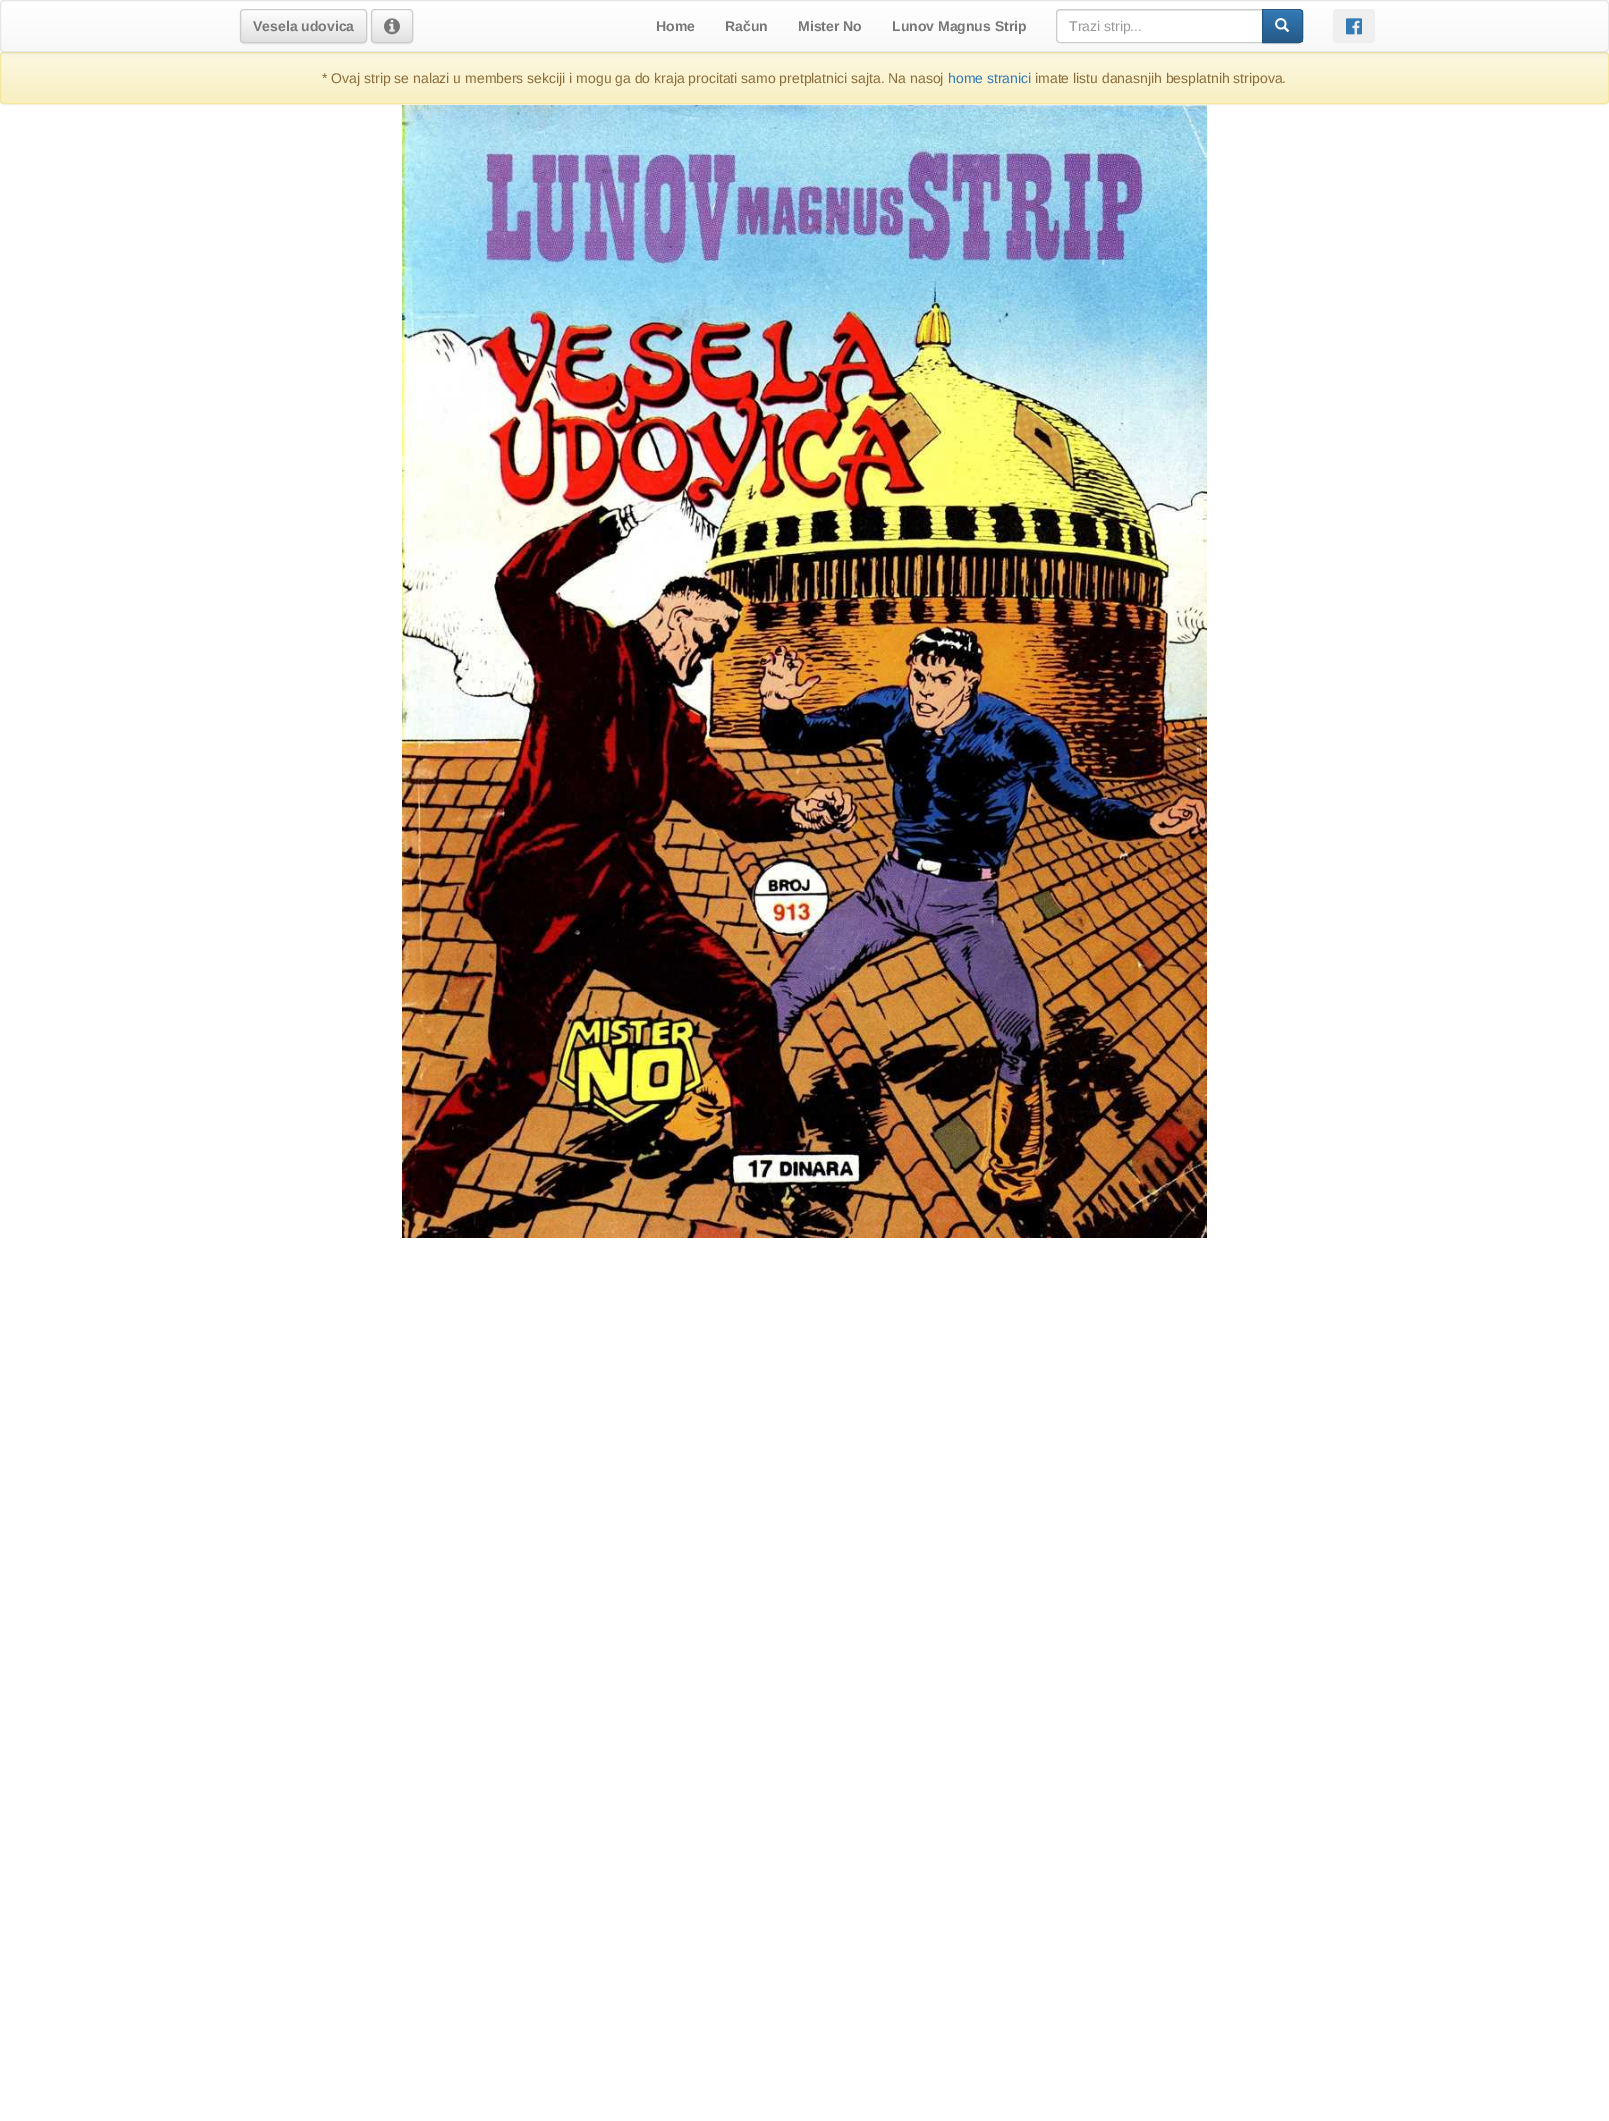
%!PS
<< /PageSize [1609 2121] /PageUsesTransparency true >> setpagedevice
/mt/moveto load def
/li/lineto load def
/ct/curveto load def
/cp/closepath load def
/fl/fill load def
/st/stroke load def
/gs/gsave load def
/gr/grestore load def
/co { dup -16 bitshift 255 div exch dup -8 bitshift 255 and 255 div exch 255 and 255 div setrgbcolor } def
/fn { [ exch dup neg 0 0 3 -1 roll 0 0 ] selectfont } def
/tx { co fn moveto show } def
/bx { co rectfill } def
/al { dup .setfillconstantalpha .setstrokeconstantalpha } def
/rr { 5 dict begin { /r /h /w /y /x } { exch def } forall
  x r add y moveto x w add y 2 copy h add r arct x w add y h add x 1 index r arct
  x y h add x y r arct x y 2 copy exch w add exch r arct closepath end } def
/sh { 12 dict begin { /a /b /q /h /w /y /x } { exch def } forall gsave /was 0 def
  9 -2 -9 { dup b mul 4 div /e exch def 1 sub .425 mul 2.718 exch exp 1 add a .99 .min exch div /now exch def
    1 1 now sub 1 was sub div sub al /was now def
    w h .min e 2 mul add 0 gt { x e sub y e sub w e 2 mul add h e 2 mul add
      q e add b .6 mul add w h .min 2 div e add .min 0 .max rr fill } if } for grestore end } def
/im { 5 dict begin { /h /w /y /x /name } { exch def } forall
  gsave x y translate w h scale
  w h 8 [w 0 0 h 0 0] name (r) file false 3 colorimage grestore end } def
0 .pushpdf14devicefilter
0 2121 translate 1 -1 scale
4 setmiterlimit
0 0 1609 2121 16#FFFFFF bx
16#000000 co
0 53 1609 52 4 1 .05 sh
gs
0 52 1609 52 4 rr clip newpath
gs 0 53 mt 1609 53 li 1609 103 li 0 103 li cp clip newpath
<< /ShadingType 2 /ColorSpace /DeviceRGB /Coords [805 53 805 103] /Extend [true true] /Function << /FunctionType 2 /Domain [0 1] /C0 [.988 .973 .89] /C1 [.973 .937 .753] /N 1 >> >> shfill gr
gr
16#FDFAEA co
4 54 mt 1605 54 li 1607 54 1608 55 1608 57 ct 1608 56 li 1608 54 1607 53 1605 53 ct 4 53 li 2 53 1 54 1 56 ct 1 57 li 1 55 2 54 4 54 ct cp fl
16#F5E79E co
.5 52.5 1608 51 3.5 rr st
16#000000 co
0 1 1609 52 4 2.5 .07 sh
gs
0 0 1609 52 4 rr clip newpath
gs 0 1 mt 1609 1 li 1609 51 li 0 51 li cp clip newpath
<< /ShadingType 2 /ColorSpace /DeviceRGB /Coords [805 1 805 51] /Extend [true true] /Function << /FunctionType 2 /Domain [0 1] /C0 [1 1 1] /C1 [.973 .973 .973] /N 1 >> >> shfill gr
gr
16#E7E7E7 co
.5 .5 1608 51 3.5 rr st
16#000000 co
240 10 127 34 4 .5 .07 sh
gs
240 9 127 34 4 rr clip newpath
gs 240 10 mt 367 10 li 367 42 li 240 42 li cp clip newpath
<< /ShadingType 2 /ColorSpace /DeviceRGB /Coords [304 10 304 42] /Extend [true true] /Function << /FunctionType 2 /Domain [0 1] /C0 [1 1 1] /C1 [.878 .878 .878] /N 1 >> >> shfill gr
gr
16#CCCCCC co
240.5 9.5 126 33 3.5 rr st
16#000000 co
371 10 42 34 4 .5 .07 sh
gs
371 9 42 34 4 rr clip newpath
gs 371 10 mt 413 10 li 413 42 li 371 42 li cp clip newpath
<< /ShadingType 2 /ColorSpace /DeviceRGB /Coords [392 10 392 42] /Extend [true true] /Function << /FunctionType 2 /Domain [0 1] /C0 [1 1 1] /C1 [.878 .878 .878] /N 1 >> >> shfill gr
gr
16#CCCCCC co
371.5 9.5 41 33 3.5 rr st
(media/1.raw) 384 18 16 17 im
16#FFFFFF co
1060 9 mt 1263 9 li 1263 43 li 1060 43 li 1058 43 1056 41 1056 39 ct 1056 13 li 1056 11 1058 9 1060 9 ct cp fl
16#ECECEC co
1060 11 mt 1262 11 li 1262 10 li 1059 10 li 1057 11 1057 12 1057 14 ct 1057 12 1058 11 1060 11 ct cp fl
16#CCCCCC co
1060 9.5 mt 1262.5 9.5 li 1262.5 42.5 li 1060 42.5 li 1058 42.5 1056.5 41 1056.5 39 ct 1056.5 13 li 1056.5 11 1058 9.5 1060 9.5 ct cp st
16#000000 co
1262 10 41 34 4 .5 .07 sh
gs
1262 9 mt 1299 9 li 1301 9 1303 11 1303 13 ct 1303 39 li 1303 41 1301 43 1299 43 ct 1262 43 li cp clip newpath
gs 1263 10 mt 1303 10 li 1303 42 li 1263 42 li cp clip newpath
<< /ShadingType 2 /ColorSpace /DeviceRGB /Coords [1283 10 1283 42] /Extend [true true] /Function << /FunctionType 2 /Domain [0 1] /C0 [.2 .478 .718] /C1 [.149 .353 .533] /N 1 >> >> shfill gr
gr
16#528EC1 co
1263 11 mt 1299 11 li 1301 11 1302 12 1302 14 ct 1302 13 li 1302 11.5 1300.5 10 1299 10 ct 1263 10 li cp fl
16#245580 co
1262.5 9.5 mt 1299 9.5 li 1301 9.5 1302.5 11 1302.5 13 ct 1302.5 39 li 1302.5 41 1301 42.5 1299 42.5 ct 1262.5 42.5 li cp st
(media/2.raw) 1275 18 15 14 im
16#EFEFEF co
1333 9 42 34 4 rr fl
(media/3.raw) 1346 18 16 17 im
(media/4.raw) 402 105 805 1133 im
(Vesela udovica) 253 31 /LiberationSans-Bold 14 16#777777 tx
(Home) 656 31 /LiberationSans-Bold 14 16#777777 tx
(Račun) 725 31 /LiberationSans-Bold 14 16#777777 tx
(Mister No) 798 31 /LiberationSans-Bold 14 16#777777 tx
(Lunov Magnus Strip) 892 31 /LiberationSans-Bold 14 16#777777 tx
(Trazi strip...) 1069 31 /LiberationSans-Regular 14 16#999999 tx
(* Ovaj strip se nalazi u members sekciji i mogu ga do kraja procitati samo pretplatnici sajta. Na nasoj) 322 83 /LiberationSans-Regular 14 16#8A6D3B tx
(home stranici) 948 83 /LiberationSans-Regular 14 16#337AB7 tx
(imate listu danasnjih besplatnih stripova.) 1035 83 /LiberationSans-Regular 14 16#8A6D3B tx
.poppdf14devicefilter showpage
